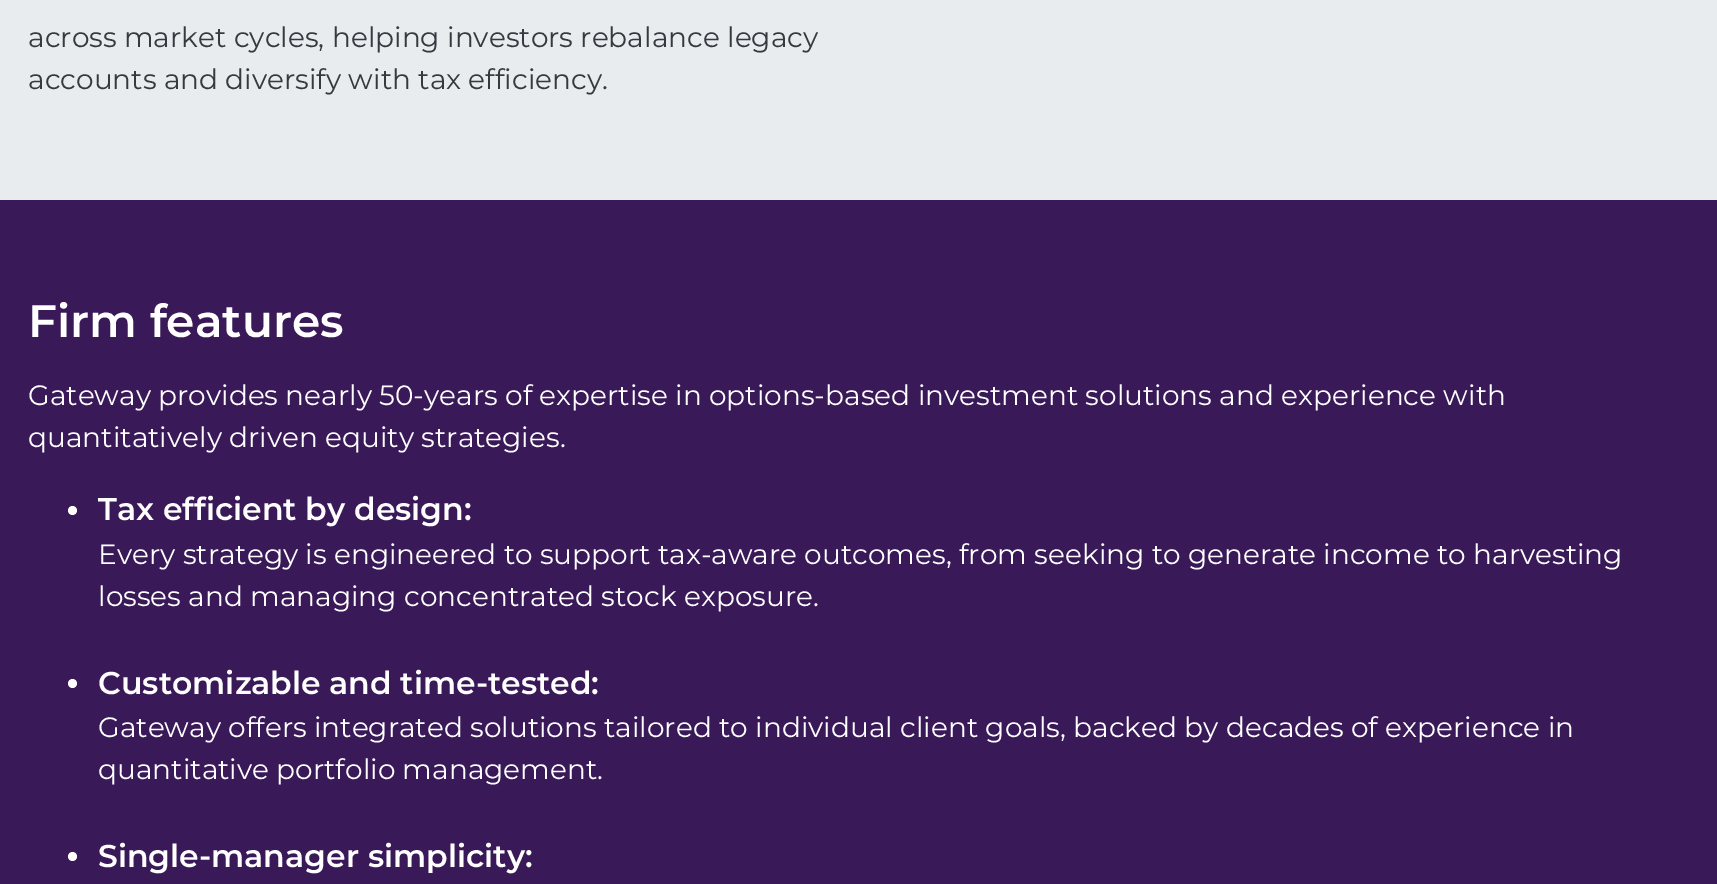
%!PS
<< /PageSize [1717 884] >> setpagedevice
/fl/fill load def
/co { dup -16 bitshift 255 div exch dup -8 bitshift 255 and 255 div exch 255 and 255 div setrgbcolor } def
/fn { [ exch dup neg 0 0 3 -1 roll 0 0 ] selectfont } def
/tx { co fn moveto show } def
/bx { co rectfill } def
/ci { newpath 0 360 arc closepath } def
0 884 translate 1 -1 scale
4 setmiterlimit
0 0 1717 884 16#E9ECEF bx
0 200 1717 684 16#391958 bx
16#FFFFFF co
72.5 510.5 4.5 ci fl
72.5 683.5 4.5 ci fl
72.5 856.5 4.5 ci fl
(across market cycles, helping investors rebalance legacy) 28 47 /Montserrat-Regular 28 16#343A40 tx
(accounts and diversify with tax efficiency.) 28 89 /Montserrat-Regular 28 16#343A40 tx
(Firm features) 28 337 /Montserrat-SemiBold 45.5 16#FFFFFF tx
(Gateway provides nearly 50-years of expertise in options-based investment solutions and experience with) 28 405 /Montserrat-Regular 28 16#FFFFFF tx
(quantitatively driven equity strategies.) 28 447 /Montserrat-Regular 28 16#FFFFFF tx
(Tax efficient by design:) 98 520 /Montserrat-SemiBold 31.5 16#FFFFFF tx
(Every strategy is engineered to support tax-aware outcomes, from seeking to generate income to harvesting) 98 564 /Montserrat-Regular 28 16#FFFFFF tx
(losses and managing concentrated stock exposure.) 98 606 /Montserrat-Regular 28 16#FFFFFF tx
(Customizable and time-tested:) 98 694 /Montserrat-SemiBold 31.5 16#FFFFFF tx
(Gateway offers integrated solutions tailored to individual client goals, backed by decades of experience in) 98 737 /Montserrat-Regular 28 16#FFFFFF tx
(quantitative portfolio management.) 98 779 /Montserrat-Regular 28 16#FFFFFF tx
(Single-manager simplicity:) 98 867 /Montserrat-SemiBold 31.5 16#FFFFFF tx
showpage
